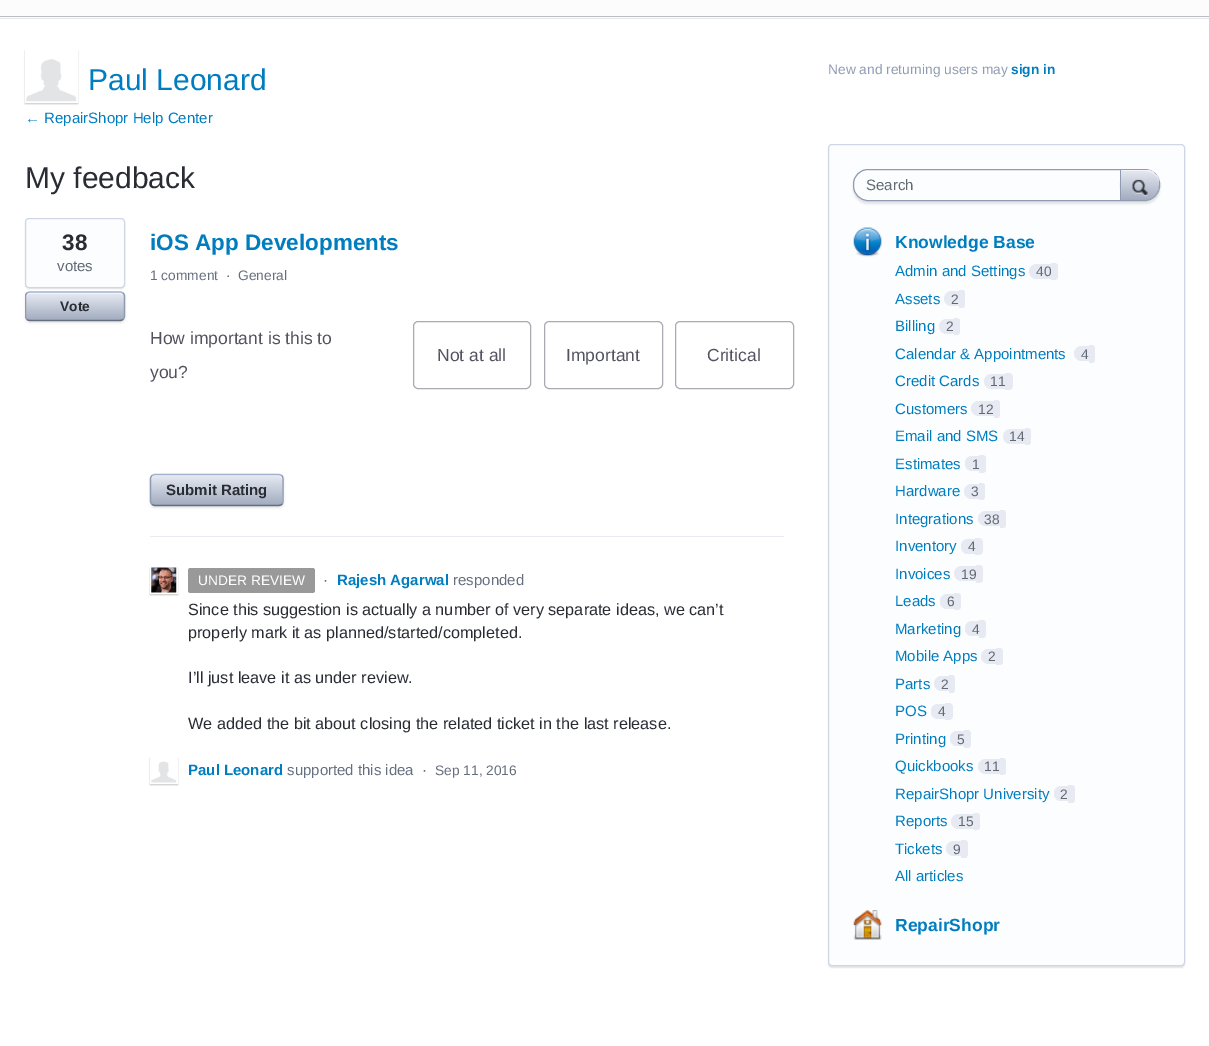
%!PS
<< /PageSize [1209 1046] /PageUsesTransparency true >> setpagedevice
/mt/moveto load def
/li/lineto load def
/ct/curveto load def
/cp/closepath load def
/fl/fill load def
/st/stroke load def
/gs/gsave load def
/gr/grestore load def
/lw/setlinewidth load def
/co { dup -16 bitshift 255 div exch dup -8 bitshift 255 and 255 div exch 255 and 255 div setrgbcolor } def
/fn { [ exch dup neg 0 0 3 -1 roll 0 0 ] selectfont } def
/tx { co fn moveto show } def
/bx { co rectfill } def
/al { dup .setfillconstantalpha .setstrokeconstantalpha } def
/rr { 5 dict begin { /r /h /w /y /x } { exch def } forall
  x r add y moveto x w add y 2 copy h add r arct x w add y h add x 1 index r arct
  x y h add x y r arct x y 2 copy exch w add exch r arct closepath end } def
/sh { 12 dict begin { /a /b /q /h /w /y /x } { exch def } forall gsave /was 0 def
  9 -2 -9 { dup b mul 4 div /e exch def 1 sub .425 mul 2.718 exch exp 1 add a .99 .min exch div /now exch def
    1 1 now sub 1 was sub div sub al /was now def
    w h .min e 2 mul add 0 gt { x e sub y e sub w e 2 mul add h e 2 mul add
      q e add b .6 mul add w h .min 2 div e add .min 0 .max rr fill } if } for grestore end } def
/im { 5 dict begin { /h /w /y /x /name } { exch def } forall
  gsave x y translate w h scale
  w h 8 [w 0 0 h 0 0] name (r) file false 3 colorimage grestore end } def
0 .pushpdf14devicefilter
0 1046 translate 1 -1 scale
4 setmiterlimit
0 0 1209 1046 16#FFFFFF bx
0 0 1209 18 16#FCFCFC bx
0 16 1209 1 16#BDBDBD bx
0 18 1209 1 16#E3E8F2 bx
gs
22 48 mt 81 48 li 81 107 li 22 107 li cp 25 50 mt 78 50 li 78 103 li 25 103 li cp eoclip newpath
16#000000 co
25 51 53 53 0 .5 .25 sh
gr
16#FFFFFF co
25.5 50.5 52 52 rectstroke
(media/1.raw) 26 59 51 43 im
16#000000 co
25 219 100 70 4 .5 .1 sh
16#FCFDFF co
25.5 218.5 99 69 3.5 rr gs fl gr
16#CFD7E6 co
st
16#000000 co
25 293 100 30 5 1 .1 sh
gs 26 293 98 27 4 rr clip newpath
<< /ShadingType 2 /ColorSpace /DeviceRGB /Coords [26 293 26 320] /Extend [true true] /Function << /FunctionType 2 /Domain [0 1] /C0 [.902 .918 .949] /C1 [.635 .675 .749] /N 1 >> >> shfill gr
0.5 al
16#FFFFFF co
30 294 mt 120 294 li 122 294 124 295 124 298 ct 124 289 109 293 105 293 ct 45 293 li 41 293 26 289 26 298 ct 26 295 28 294 30 294 ct cp fl
1 al
16#A3B1CC co
1.2 lw
27 293 mt 27.5 292.5 29 292 30 292 ct 120 292 li 121 292 122.5 292.5 123 293 ct st
16#8F9BB3 co
123 293 mt 124 294 124.5 295 124.5 296 ct 124.5 316 li 124.5 317.5 124 318.5 123 319.5 ct st
16#666F80 co
123 319.5 mt 122.5 320 121 320.5 120 320.5 ct 30 320.5 li 29 320.5 27.5 320 27 319.5 ct st
gs
25 50 1160 933 rectclip
16#8F9BB3 co
27 319.5 mt 26 318.5 25.5 317.5 25.5 316 ct 25.5 296 li 25.5 295 26 294 27 293 ct st
gr
150 536 634 1 16#EBEBF1 bx
16#AAAAB2 co
1 lw
413.5 321.5 117 67 4.5 rr st
544.5 321.5 118 67 4.5 rr st
675.5 321.5 118 67 4.5 rr st
16#000000 co
150 475 134 33 5 1 .1 sh
gs 151 475 132 30 4 rr clip newpath
<< /ShadingType 2 /ColorSpace /DeviceRGB /Coords [151 475 151 505] /Extend [true true] /Function << /FunctionType 2 /Domain [0 1] /C0 [.902 .918 .949] /C1 [.635 .675 .749] /N 1 >> >> shfill gr
0.5 al
16#FFFFFF co
155 476 mt 279 476 li 283 476 282 485 282 487 ct 282 504 li 283 503 283 502 283 501 ct 283 479 li 283 477 281 475 279 475 ct 155 475 li 153 475 151 477 151 479 ct 151 480 li 151 478 153 476 155 476 ct cp fl
1 al
16#A3B1CC co
1.2 lw
152 475.5 mt 154.5 474.5 li 258 474.5 li 279 474.5 li 282 475.5 li st
16#8F9BB3 co
282 475.5 mt 282.5 476.5 283 477.5 283 479 ct 283 501 li 283 502.5 282.5 503.5 282 504.5 ct st
16#666F80 co
282 504.5 mt 279 505.5 li 154.5 505.5 li 152 504.5 li st
16#8F9BB3 co
152 504.5 mt 151 503.5 150.5 502.5 150.5 501 ct 150.5 479 li 150.5 477.5 151 476.5 152 475.5 ct st
16#999999 co
188 568 127 25 2.5 rr fl
16#000000 co
150 568 28 27 0 .5 .25 sh
16#FFFFFF co
1 lw
150.5 566.5 27 27 rectstroke
(media/2.raw) 151 567 26 26 im
gs
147 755 mt 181 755 li 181 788 li 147 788 li cp 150 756 mt 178 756 li 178 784 li 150 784 li cp eoclip newpath
16#000000 co
150 758 28 27 0 .5 .25 sh
gr
150.5 756.5 27 27 rectstroke
(media/3.raw) 151 761 26 22 im
16#000000 co
828 145 357 823 4 .5 .1 sh
16#FCFDFF co
828.5 144.5 356 821 3.5 rr gs fl gr
16#CFD7E6 co
st
16#000000 co
853 171 307 33 15 1 .1 sh
16#FCFDFF co
853.5 169.5 306 31 14.5 rr gs fl gr
16#8F9BB3 co
st
gs
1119 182 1 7 rectclip
16#000000 co
1120 170 40 31 15 1 .1 sh
gr
gs 1121 170 mt 1145 170 li 1152.5 170 1159 176 1159 184 ct 1159 185 li 1159 193.5 1152.5 200 1145 200 ct 1121 200 li cp clip newpath
<< /ShadingType 2 /ColorSpace /DeviceRGB /Coords [1121 170 1121 200] /Extend [true true] /Function << /FunctionType 2 /Domain [0 1] /C0 [.902 .918 .949] /C1 [.635 .675 .749] /N 1 >> >> shfill gr
0.5 al
16#FFFFFF co
1121 170 mt 1145 170 li 1151.5 170 1157.5 175 1158.5 181 ct 1157 175 1151.5 171 1145 171 ct 1121 171 li cp fl
1 al
16#8F9BB3 co
1151 198.5 mt 1146.5 200 li 1153.5 199 1159 192.5 1159 185 ct 1159 191 1156.5 196 1151 198.5 ct cp fl
1120 170 1 30 16#8F9BB3 bx
(media/4.raw) 1132 179 16 18 im
(media/5.raw) 853 227 29 30 im
16#E7EAF2 co
1036.5 264 mt 1051 264 li 1051 279 li 1036.5 279 li 1032.5 279 1029 275.5 1029 271.5 ct 1029 267.5 1032.5 264 1036.5 264 ct cp fl
1051 263 mt 1054.5 263 li 1056.5 263 1058 264.5 1058 266.5 ct 1058 276.5 li 1058 278.5 1056.5 280 1054.5 280 ct 1051 280 li cp fl
951.5 291 mt 959 291 li 959 306 li 951.5 306 li 947.5 306 944 302.5 944 298.5 ct 944 294.5 947.5 291 951.5 291 ct cp fl
959 290 mt 962 290 li 963.5 290 965 291.5 965 293 ct 965 305 li 965 306.5 963.5 308 962 308 ct 959 308 li cp fl
946.5 319 mt 954 319 li 954 334 li 946.5 334 li 942.5 334 939 330.5 939 326.5 ct 939 322.5 942.5 319 946.5 319 ct cp fl
954 318 mt 957 318 li 958.5 318 960 319.5 960 321 ct 960 332 li 960 333.5 958.5 335 957 335 ct 954 335 li cp fl
1081.5 346 mt 1089 346 li 1089 361 li 1081.5 361 li 1077.5 361 1074 357.5 1074 353.5 ct 1074 349.5 1077.5 346 1081.5 346 ct cp fl
1089 345 mt 1092 345 li 1093.5 345 1095 346.5 1095 348 ct 1095 360 li 1095 361.5 1093.5 363 1092 363 ct 1089 363 li cp fl
991.5 374 mt 1005 374 li 1005 389 li 991.5 389 li 987.5 389 984 385.5 984 381.5 ct 984 377.5 987.5 374 991.5 374 ct cp fl
1005 373 mt 1009 373 li 1011 373 1013 375 1013 377 ct 1013 386 li 1013 388 1011 390 1009 390 ct 1005 390 li cp fl
978.5 401 mt 994 401 li 994 416 li 978.5 416 li 974.5 416 971 412.5 971 408.5 ct 971 404.5 974.5 401 978.5 401 ct cp fl
994 400 mt 997 400 li 998.5 400 1000 401.5 1000 403 ct 1000 415 li 1000 416.5 998.5 418 997 418 ct 994 418 li cp fl
1010.5 429 mt 1025 429 li 1025 444 li 1010.5 444 li 1006.5 444 1003 440.5 1003 436.5 ct 1003 432.5 1006.5 429 1010.5 429 ct cp fl
1025 428 mt 1028 428 li 1029.5 428 1031 429.5 1031 431 ct 1031 442 li 1031 443.5 1029.5 445 1028 445 ct 1025 445 li cp fl
972 456 mt 979 456 li 979 471 li 972 471 li 968 471 965 468 965 464 ct 965 463 li 965 459 968 456 972 456 ct cp fl
979 455 mt 982.5 455 li 984.5 455 986 456.5 986 458.5 ct 986 469.5 li 986 471.5 984.5 473 982.5 473 ct 979 473 li cp fl
971.5 484 mt 979 484 li 979 499 li 971.5 499 li 967.5 499 964 495.5 964 491.5 ct 964 487.5 967.5 484 971.5 484 ct cp fl
979 483 mt 982 483 li 983.5 483 985 484.5 985 486 ct 985 497 li 985 498.5 983.5 500 982 500 ct 979 500 li cp fl
985.5 511 mt 1000 511 li 1000 526 li 985.5 526 li 981.5 526 978 522.5 978 518.5 ct 978 514.5 981.5 511 985.5 511 ct cp fl
1000 510 mt 1003 510 li 1004.5 510 1006 511.5 1006 513 ct 1006 525 li 1006 526.5 1004.5 528 1003 528 ct 1000 528 li cp fl
968 539 mt 975 539 li 975 554 li 968 554 li 964 554 961 551 961 547 ct 961 546 li 961 542 964 539 968 539 ct cp fl
975 538 mt 979 538 li 981 538 983 540 983 542 ct 983 551 li 983 553 981 555 979 555 ct 975 555 li cp fl
961.5 566 mt 976 566 li 976 581 li 961.5 581 li 957.5 581 954 577.5 954 573.5 ct 954 569.5 957.5 566 961.5 566 ct cp fl
976 565 mt 979.5 565 li 981.5 565 983 566.5 983 568.5 ct 983 579.5 li 983 581.5 981.5 583 979.5 583 ct 976 583 li cp fl
947 594 mt 954 594 li 954 609 li 947 609 li 943 609 940 606 940 602 ct 940 601 li 940 597 943 594 947 594 ct cp fl
954 593 mt 957.5 593 li 959.5 593 961 594.5 961 596.5 ct 961 606.5 li 961 608.5 959.5 610 957.5 610 ct 954 610 li cp fl
972 621 mt 979 621 li 979 636 li 972 636 li 968 636 965 633 965 629 ct 965 628 li 965 624 968 621 972 621 ct cp fl
979 620 mt 982.5 620 li 984.5 620 986 621.5 986 623.5 ct 986 634.5 li 986 636.5 984.5 638 982.5 638 ct 979 638 li cp fl
988.5 649 mt 996 649 li 996 664 li 988.5 664 li 984.5 664 981 660.5 981 656.5 ct 981 652.5 984.5 649 988.5 649 ct cp fl
996 648 mt 999.5 648 li 1001.5 648 1003 649.5 1003 651.5 ct 1003 661.5 li 1003 663.5 1001.5 665 999.5 665 ct 996 665 li cp fl
941.5 676 mt 949 676 li 949 691 li 941.5 691 li 937.5 691 934 687.5 934 683.5 ct 934 679.5 937.5 676 941.5 676 ct cp fl
949 675 mt 952 675 li 953.5 675 955 676.5 955 678 ct 955 690 li 955 691.5 953.5 693 952 693 ct 949 693 li cp fl
938 704 mt 945 704 li 945 719 li 938 719 li 934 719 931 716 931 712 ct 931 711 li 931 707 934 704 938 704 ct cp fl
945 703 mt 949 703 li 951 703 953 705 953 707 ct 953 716 li 953 718 951 720 949 720 ct 945 720 li cp fl
957 731 mt 964 731 li 964 746 li 957 746 li 953 746 950 743 950 739 ct 950 738 li 950 734 953 731 957 731 ct cp fl
964 730 mt 967.5 730 li 969.5 730 971 731.5 971 733.5 ct 971 744.5 li 971 746.5 969.5 748 967.5 748 ct 964 748 li cp fl
985.5 759 mt 1000 759 li 1000 774 li 985.5 774 li 981.5 774 978 770.5 978 766.5 ct 978 762.5 981.5 759 985.5 759 ct cp fl
1000 758 mt 1003 758 li 1004.5 758 1006 759.5 1006 761 ct 1006 772 li 1006 773.5 1004.5 775 1003 775 ct 1000 775 li cp fl
1061 786 mt 1068 786 li 1068 801 li 1061 801 li 1057 801 1054 798 1054 794 ct 1054 793 li 1054 789 1057 786 1061 786 ct cp fl
1068 785 mt 1071.5 785 li 1073.5 785 1075 786.5 1075 788.5 ct 1075 799.5 li 1075 801.5 1073.5 803 1071.5 803 ct 1068 803 li cp fl
958.5 814 mt 974 814 li 974 829 li 958.5 829 li 954.5 829 951 825.5 951 821.5 ct 951 817.5 954.5 814 958.5 814 ct cp fl
974 813 mt 977 813 li 978.5 813 980 814.5 980 816 ct 980 827 li 980 828.5 978.5 830 977 830 ct 974 830 li cp fl
953.5 841 mt 961 841 li 961 856 li 953.5 856 li 949.5 856 946 852.5 946 848.5 ct 946 844.5 949.5 841 953.5 841 ct cp fl
961 840 mt 964.5 840 li 966.5 840 968 841.5 968 843.5 ct 968 854.5 li 968 856.5 966.5 858 964.5 858 ct 961 858 li cp fl
(media/6.raw) 853 910 29 30 im
(Paul Leonard) 88 90 /LiberationSans-Regular 30 16#007DBF tx
(← RepairShopr Help Center) 25 123 /LiberationSans-Regular 15 16#007DBF tx
(My feedback) 25 188 /LiberationSans-Regular 30 16#292C33 tx
(38) 62 250 /LiberationSans-Bold 22.5 16#292C33 tx
(votes) 57 271 /LiberationSans-Regular 15 16#616973 tx
(Vote) 60 311 /LiberationSans-Bold 13.75 16#292C33 tx
(iOS App Developments) 150 250 /LiberationSans-Bold 22.5 16#007DBF tx
(1 comment) 150 280 /LiberationSans-Regular 13.75 16#666F80 tx
(·) 226 280 /LiberationSans-Regular 13.75 16#616973 tx
(General) 238 280 /LiberationSans-Regular 13.75 16#666F80 tx
(How important is this to) 150 344 /LiberationSans-Regular 17.5 16#525260 tx
(you?) 150 378 /LiberationSans-Regular 17.5 16#525260 tx
(Not at all) 437 361 /LiberationSans-Regular 17.5 16#525260 tx
(Important) 566 361 /LiberationSans-Regular 17.5 16#525260 tx
(Critical) 707 361 /LiberationSans-Regular 17.5 16#525260 tx
(Submit Rating) 166 495 /LiberationSans-Bold 15 16#292C33 tx
(UNDER REVIEW) 198 585 /LiberationSans-Regular 13.75 16#FFFFFF tx
(·) 323 585 /LiberationSans-Regular 15 16#616973 tx
(Rajesh Agarwal) 337 585 /LiberationSans-Bold 15 16#007DBF tx
(responded) 453 585 /LiberationSans-Regular 15 16#666F80 tx
(Since this suggestion is actually a number of very separate ideas, we can’t) 188 615 /LiberationSans-Regular 16.25 16#292C33 tx
(properly mark it as planned/started/completed.) 188 638 /LiberationSans-Regular 16.25 16#292C33 tx
(I’ll just leave it as under review.) 188 683 /LiberationSans-Regular 16.25 16#292C33 tx
(We added the bit about closing the related ticket in the last release.) 188 729 /LiberationSans-Regular 16.25 16#292C33 tx
(Paul Leonard) 188 775 /LiberationSans-Bold 15 16#007DBF tx
(supported this idea) 287 775 /LiberationSans-Regular 15 16#666F80 tx
(·) 422 775 /LiberationSans-Regular 15 16#616973 tx
(Sep 11, 2016) 435 775 /LiberationSans-Regular 13.75 16#666F80 tx
(New and returning users may) 828 74 /LiberationSans-Regular 13.75 16#8F9BB3 tx
(sign in) 1011 74 /LiberationSans-Bold 13.75 16#007DBF tx
(Search) 866 190 /LiberationSans-Regular 15 16#616973 tx
(Knowledge Base) 895 248 /LiberationSans-Bold 17.5 16#007DBF tx
(Admin and Settings) 895 276 /LiberationSans-Regular 15 16#007DBF tx
(40) 1036 276 /LiberationSans-Regular 13.75 16#616973 tx
(Assets) 895 304 /LiberationSans-Regular 15 16#007DBF tx
(2) 951 304 /LiberationSans-Regular 13.75 16#616973 tx
(Billing) 895 331 /LiberationSans-Regular 15 16#007DBF tx
(2) 946 331 /LiberationSans-Regular 13.75 16#616973 tx
(Calendar & Appointments) 895 359 /LiberationSans-Regular 15 16#007DBF tx
(4) 1081 359 /LiberationSans-Regular 13.75 16#616973 tx
(Credit Cards) 895 386 /LiberationSans-Regular 15 16#007DBF tx
(11) 990 386 /LiberationSans-Regular 13.75 16#616973 tx
(Customers) 895 414 /LiberationSans-Regular 15 16#007DBF tx
(12) 978 414 /LiberationSans-Regular 13.75 16#616973 tx
(Email and SMS) 895 441 /LiberationSans-Regular 15 16#007DBF tx
(14) 1009 441 /LiberationSans-Regular 13.75 16#616973 tx
(Estimates) 895 469 /LiberationSans-Regular 15 16#007DBF tx
(1) 972 469 /LiberationSans-Regular 13.75 16#616973 tx
(Hardware) 895 496 /LiberationSans-Regular 15 16#007DBF tx
(3) 971 496 /LiberationSans-Regular 13.75 16#616973 tx
(Integrations) 895 524 /LiberationSans-Regular 15 16#007DBF tx
(38) 984 524 /LiberationSans-Regular 13.75 16#616973 tx
(Inventory) 895 551 /LiberationSans-Regular 15 16#007DBF tx
(4) 968 551 /LiberationSans-Regular 13.75 16#616973 tx
(Invoices) 895 579 /LiberationSans-Regular 15 16#007DBF tx
(19) 961 579 /LiberationSans-Regular 13.75 16#616973 tx
(Leads) 895 606 /LiberationSans-Regular 15 16#007DBF tx
(6) 947 606 /LiberationSans-Regular 13.75 16#616973 tx
(Marketing) 895 634 /LiberationSans-Regular 15 16#007DBF tx
(4) 972 634 /LiberationSans-Regular 13.75 16#616973 tx
(Mobile Apps) 895 661 /LiberationSans-Regular 15 16#007DBF tx
(2) 988 661 /LiberationSans-Regular 13.75 16#616973 tx
(Parts) 895 689 /LiberationSans-Regular 15 16#007DBF tx
(2) 941 689 /LiberationSans-Regular 13.75 16#616973 tx
(POS) 895 716 /LiberationSans-Regular 15 16#007DBF tx
(4) 938 716 /LiberationSans-Regular 13.75 16#616973 tx
(Printing) 895 744 /LiberationSans-Regular 15 16#007DBF tx
(5) 957 744 /LiberationSans-Regular 13.75 16#616973 tx
(Quickbooks) 895 771 /LiberationSans-Regular 15 16#007DBF tx
(11) 984 771 /LiberationSans-Regular 13.75 16#616973 tx
(RepairShopr University) 895 799 /LiberationSans-Regular 15 16#007DBF tx
(2) 1060 799 /LiberationSans-Regular 13.75 16#616973 tx
(Reports) 895 826 /LiberationSans-Regular 15 16#007DBF tx
(15) 958 826 /LiberationSans-Regular 13.75 16#616973 tx
(Tickets) 895 854 /LiberationSans-Regular 15 16#007DBF tx
(9) 953 854 /LiberationSans-Regular 13.75 16#616973 tx
(All articles) 895 881 /LiberationSans-Regular 15 16#007DBF tx
(RepairShopr) 895 931 /LiberationSans-Bold 17.5 16#007DBF tx
.poppdf14devicefilter showpage
